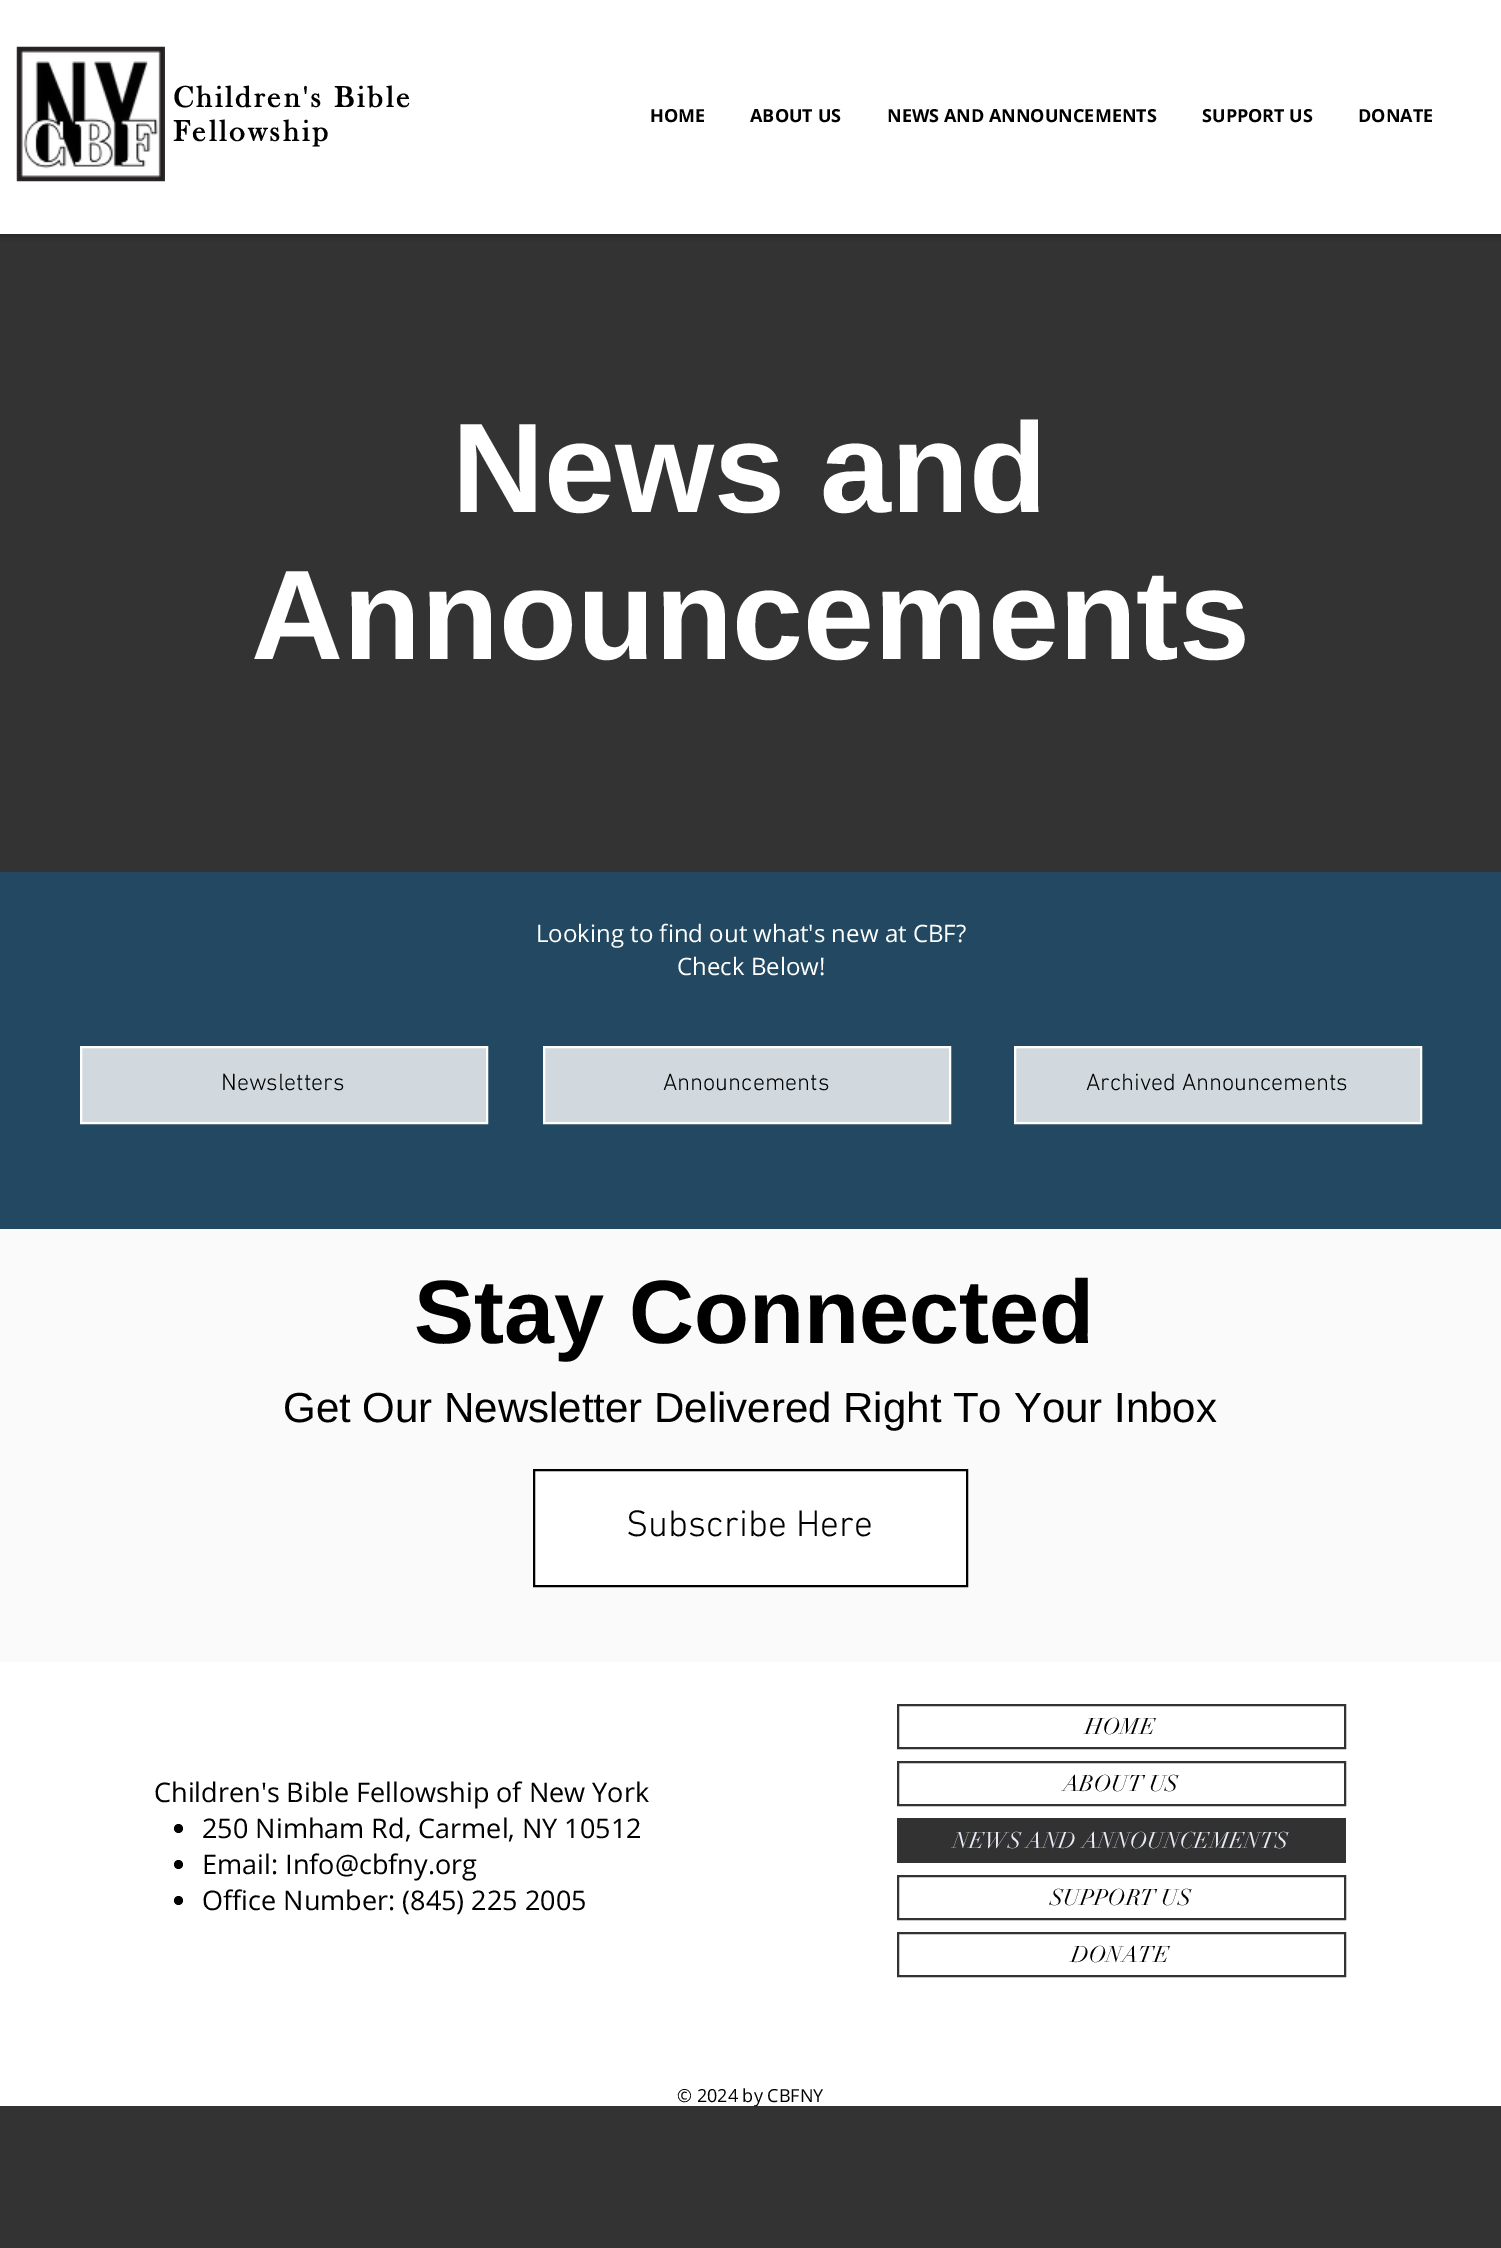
%!PS
<< /PageSize [1501 2248] /PageUsesTransparency true >> setpagedevice
/mt/moveto load def
/li/lineto load def
/cp/closepath load def
/fl/fill load def
/st/stroke load def
/gs/gsave load def
/gr/grestore load def
/lw/setlinewidth load def
/co { dup -16 bitshift 255 div exch dup -8 bitshift 255 and 255 div exch 255 and 255 div setrgbcolor } def
/fn { [ exch dup neg 0 0 3 -1 roll 0 0 ] selectfont } def
/tx { co fn moveto show } def
/bx { co rectfill } def
/al { dup .setfillconstantalpha .setstrokeconstantalpha } def
/ci { newpath 0 360 arc closepath } def
/rr { 5 dict begin { /r /h /w /y /x } { exch def } forall
  x r add y moveto x w add y 2 copy h add r arct x w add y h add x 1 index r arct
  x y h add x y r arct x y 2 copy exch w add exch r arct closepath end } def
/sh { 12 dict begin { /a /b /q /h /w /y /x } { exch def } forall gsave /was 0 def
  9 -2 -9 { dup b mul 4 div /e exch def 1 sub .425 mul 2.718 exch exp 1 add a .99 .min exch div /now exch def
    1 1 now sub 1 was sub div sub al /was now def
    w h .min e 2 mul add 0 gt { x e sub y e sub w e 2 mul add h e 2 mul add
      q e add b .6 mul add w h .min 2 div e add .min 0 .max rr fill } if } for grestore end } def
/im { 5 dict begin { /h /w /y /x /name } { exch def } forall
  gsave x y translate w h scale
  w h 8 [w 0 0 h 0 0] name (r) file false 3 colorimage grestore end } def
0 .pushpdf14devicefilter
0 2248 translate 1 -1 scale
4 setmiterlimit
0 0 1501 2248 16#333333 bx
16#000000 co
0 0 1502 234 0 4 .5 sh
0 0 1501 234 16#FFFFFF bx
(media/1.raw) 16 46 149 136 im
0 872 1501 357 16#224961 bx
16#D1D9DE co
81 1047 mt 487 1047 li 487 1123 li 81 1123 li cp gs fl gr
16#FFFFFF co
2 lw
st
16#D1D9DE co
544 1047 mt 950 1047 li 950 1123 li 544 1123 li cp gs fl gr
16#FFFFFF co
st
16#D1D9DE co
1015 1047 mt 1421 1047 li 1421 1123 li 1015 1123 li cp gs fl gr
16#FFFFFF co
st
0 1229 1501 433 16#FAFAFA bx
16#FFFFFF co
534 1470 mt 967 1470 li 967 1586 li 534 1586 li cp gs fl gr
16#000000 co
st
0 1662 1501 444 16#FFFFFF bx
16#000000 co
178.5 1828.5 4.5 ci fl
178.5 1864.5 4.5 ci fl
178.5 1900.5 4.5 ci fl
16#323232 co
898 1705 447 43 rectstroke
898 1762 447 43 rectstroke
897 1818 449 45 16#323232 bx
898 1876 447 43 rectstroke
898 1933 447 43 rectstroke
/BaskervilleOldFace-Bold 30 fn
16#000000 co
173 107 mt 3 0 (Children's Bible) ashow
173 141 mt 3 0 (Fellowship) ashow
(HOME) 650 122 /OpenSans-Bold 18 16#000000 tx
(ABOUT US) 750 122 /OpenSans-Bold 18 16#000000 tx
(NEWS AND ANNOUNCEMENTS) 887 122 /OpenSans-Bold 18 16#000000 tx
(SUPPORT US) 1202 122 /OpenSans-Bold 18 16#000000 tx
(DONATE) 1358 122 /OpenSans-Bold 18 16#000000 tx
(News and) 452 512 /LiberationSans-Bold 127.5 16#FFFFFF tx
(Announcements) 251 659 /LiberationSans-Bold 127.5 16#FFFFFF tx
(Looking to find out what's new at CBF?) 536 942 /OpenSans-Regular 24 16#FFFFFF tx
(Check Below!) 677 975 /OpenSans-Regular 24 16#FFFFFF tx
(Newsletters) 221 1090 /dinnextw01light-Light 24 16#000000 tx
(Announcements) 663 1090 /dinnextw01light-Light 24 16#000000 tx
(Archived Announcements) 1086 1090 /dinnextw01light-Light 24 16#000000 tx
(Stay Connected) 414 1343 /LiberationSans-Bold 90 16#000000 tx
(Get Our Newsletter Delivered Right To Your Inbox) 283 1422 /LiberationSans-Regular 42 16#000000 tx
(Subscribe Here) 626 1536 /dinnextw01light-Light 37.5 16#000000 tx
(Children's Bible Fellowship of New York) 154 1802 /OpenSans-Regular 27 16#000000 tx
(250 Nimham Rd, Carmel, NY 10512) 202 1838 /OpenSans-Regular 27 16#000000 tx
(Email: Info@cbfny.org) 202 1874 /OpenSans-Regular 27 16#000000 tx
(Office Number: \(845\) 225 2005) 202 1910 /OpenSans-Regular 27 16#000000 tx
(HOME) 1085 1734 /didot-Regular 22.5 16#000000 tx
(ABOUT US) 1063 1791 /didot-Regular 22.5 16#000000 tx
(NEWS AND ANNOUNCEMENTS) 953 1848 /didot-Regular 22.5 16#E6EAF5 tx
(SUPPORT US) 1050 1905 /didot-Regular 22.5 16#000000 tx
(DONATE) 1071 1962 /didot-Regular 22.5 16#000000 tx
(© 2024 by CBFNY) 677 2102 /OpenSans-Regular 18 16#000000 tx
.poppdf14devicefilter showpage
